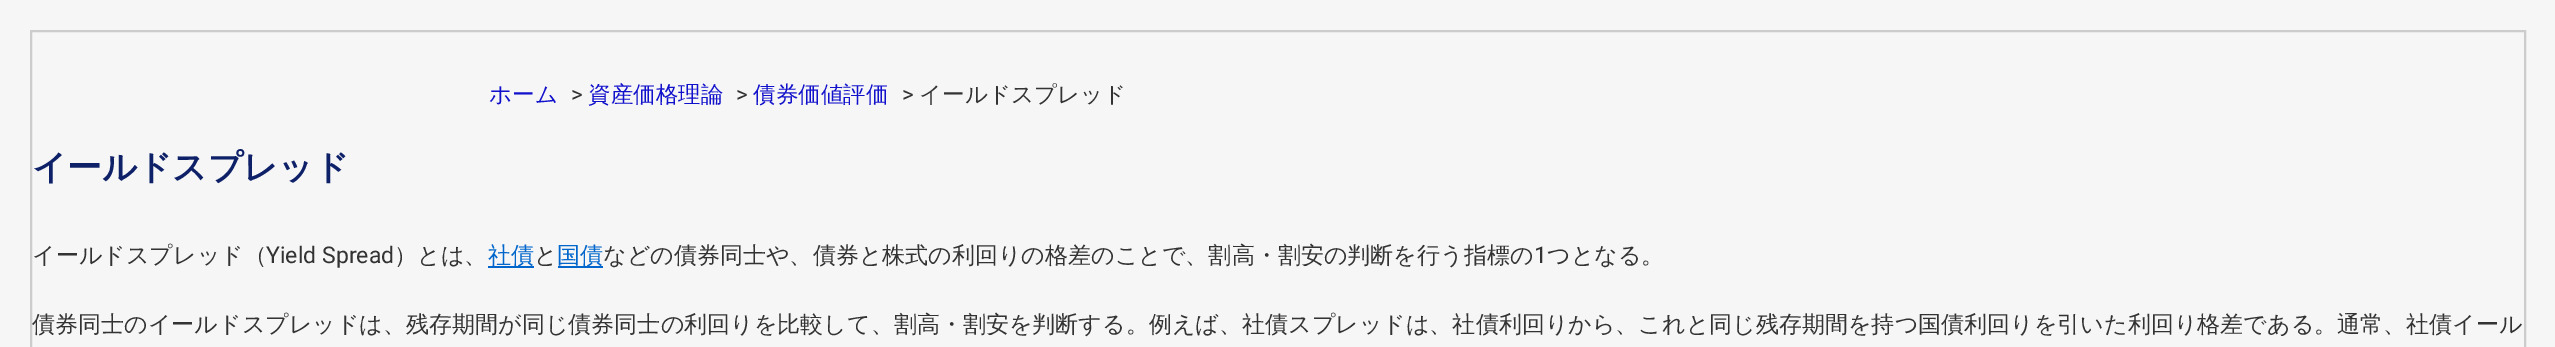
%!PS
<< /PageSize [2555 347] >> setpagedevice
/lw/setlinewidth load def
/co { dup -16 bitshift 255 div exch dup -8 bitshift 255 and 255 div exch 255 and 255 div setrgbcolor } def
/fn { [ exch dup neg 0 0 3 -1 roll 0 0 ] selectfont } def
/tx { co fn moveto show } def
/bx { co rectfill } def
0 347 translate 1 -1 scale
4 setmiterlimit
0 0 2555 347 16#F6F6F6 bx
16#CCCCCC co
2 lw
31 31 2494 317 rectstroke
488 266 46 2 16#0066CC bx
558 266 45 2 16#0066CC bx
(ホーム) 489 102 /WenQuanYiZenHei-Medium 22.5 16#1111CC tx
(>) 571 102 /Roboto-Regular 22.5 16#333333 tx
(資産価格理論) 588 102 /WenQuanYiZenHei-Medium 22.5 16#1111CC tx
(>) 736 102 /Roboto-Regular 22.5 16#333333 tx
(債券価値評価) 753 102 /WenQuanYiZenHei-Medium 22.5 16#1111CC tx
(>) 902 102 /Roboto-Regular 22.5 16#333333 tx
(イールドスプレッド) 919 102 /WenQuanYiZenHei-Medium 22.5 16#333333 tx
(イールドスプレッド) 32 179 /WenQuanYiZenHei-Bold 34.5 16#0E2168 tx
(イールドスプレッド（) 32 263 /WenQuanYiZenHei-Medium 23.04 16#333333 tx
(Yield Spread) 266 263 /Roboto-Regular 23.04 16#333333 tx
(）とは、) 394 263 /WenQuanYiZenHei-Medium 23.04 16#333333 tx
(社債) 488 263 /WenQuanYiZenHei-Medium 23.04 16#0066CC tx
(と) 534 263 /WenQuanYiZenHei-Medium 23.04 16#333333 tx
(国債) 557 263 /WenQuanYiZenHei-Medium 23.04 16#0066CC tx
(などの債券同士や、債券と株式の利回りの格差のことで、割高・割安の判断を行う指標の) 603 263 /WenQuanYiZenHei-Medium 23.04 16#333333 tx
(1) 1534 263 /Roboto-Regular 23.04 16#333333 tx
(つとなる。) 1547 263 /WenQuanYiZenHei-Medium 23.04 16#333333 tx
(債券同士のイールドスプレッドは、残存期間が同じ債券同士の利回りを比較して、割高・割安を判断する。例えば、社債スプレッドは、社債利回りから、これと同じ残存期間を持つ国債利回りを引いた利回り格差である。通常、社債イール) 32 332 /WenQuanYiZenHei-Medium 23.04 16#333333 tx
showpage
